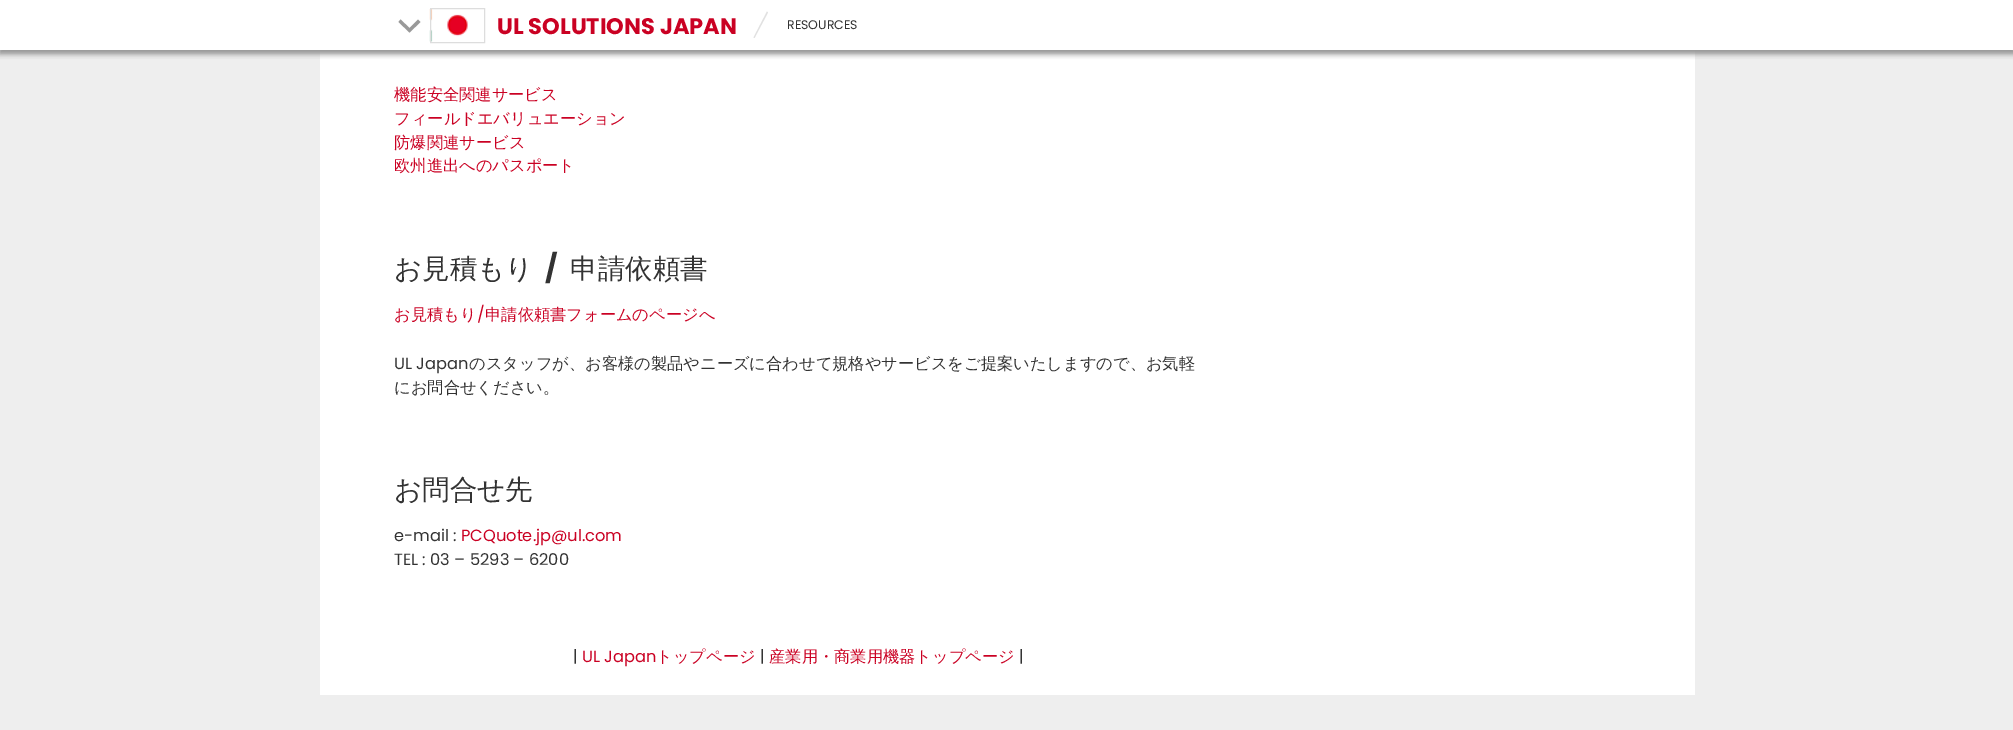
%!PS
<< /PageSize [2013 730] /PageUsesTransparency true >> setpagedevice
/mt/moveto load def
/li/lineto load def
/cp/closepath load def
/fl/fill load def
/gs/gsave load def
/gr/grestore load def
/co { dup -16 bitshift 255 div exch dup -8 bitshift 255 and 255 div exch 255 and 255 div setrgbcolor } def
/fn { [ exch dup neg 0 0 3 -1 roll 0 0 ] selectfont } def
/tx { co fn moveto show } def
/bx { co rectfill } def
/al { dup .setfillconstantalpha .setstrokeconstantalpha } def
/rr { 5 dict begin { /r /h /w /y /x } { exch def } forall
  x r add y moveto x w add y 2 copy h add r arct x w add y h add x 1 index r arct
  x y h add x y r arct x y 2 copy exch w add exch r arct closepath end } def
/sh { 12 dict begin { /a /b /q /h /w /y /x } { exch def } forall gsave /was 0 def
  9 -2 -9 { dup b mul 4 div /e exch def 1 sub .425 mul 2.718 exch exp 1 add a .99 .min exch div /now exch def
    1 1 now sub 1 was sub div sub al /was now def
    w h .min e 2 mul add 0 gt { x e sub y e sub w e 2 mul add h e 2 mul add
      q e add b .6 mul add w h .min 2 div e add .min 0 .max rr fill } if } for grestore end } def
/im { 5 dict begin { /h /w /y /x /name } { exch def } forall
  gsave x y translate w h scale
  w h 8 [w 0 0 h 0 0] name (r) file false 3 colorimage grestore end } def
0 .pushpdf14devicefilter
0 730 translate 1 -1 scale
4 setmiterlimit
0 0 2013 730 16#EEEEEE bx
320 50 1375 645 16#FFFFFF bx
16#999999 co
0 3 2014 50 0 3 1 sh
0 0 2013 50 16#FFFFFF bx
gs
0 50 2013 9 rectclip
16#999999 co
0 3 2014 50 0 3 1 sh
gr
16#999999 co
398.5 22 mt 400.5 19.5 li 409.5 28 li 418 19.5 li 420.5 22 li 409.5 32.5 li cp fl
(media/1.raw) 429 9 39 33 im
16#DDDDDD co
430.5 8.5 54 34 rectstroke
16#E1E1E1 co
754.5 38 mt 768 12.5 li 767 11.5 li 753.5 37.5 li cp fl
(UL SOLUTIONS JAPAN) 497 34 /Poppins-Bold 22.5 16#CA0123 tx
(RESOURCES) 787 29 /Poppins-Regular 12.5 16#333333 tx
(機能安全関連サービス) 394 100 /WenQuanYiZenHei-Medium 16.25 16#CA0123 tx
(フィールドエバリュエーション) 394 124 /WenQuanYiZenHei-Medium 16.25 16#CA0123 tx
(防爆関連サービス) 394 148 /WenQuanYiZenHei-Medium 16.25 16#CA0123 tx
(欧州進出へのパスポート) 394 171 /WenQuanYiZenHei-Medium 16.25 16#CA0123 tx
(お見積もり) 394 278 /WenQuanYiZenHei-Medium 27.5 16#333333 tx
(/) 545 278 /Poppins-Bold 27.5 16#333333 tx
(申請依頼書) 570 278 /WenQuanYiZenHei-Medium 27.5 16#333333 tx
(お見積もり) 394 320 /WenQuanYiZenHei-Medium 16.25 16#CA0123 tx
(/) 477 320 /Poppins-Regular 16.25 16#CA0123 tx
(申請依頼書フォームのページへ) 485 320 /WenQuanYiZenHei-Medium 16.25 16#CA0123 tx
(UL Japan) 394 369 /Poppins-Regular 16.25 16#333333 tx
(のスタッフが、お客様の製品やニーズに合わせて規格やサービスをご提案いたしますので、お気軽) 469 369 /WenQuanYiZenHei-Medium 16.25 16#333333 tx
(にお問合せください。) 394 393 /WenQuanYiZenHei-Medium 16.25 16#333333 tx
(お問合せ先) 394 499 /WenQuanYiZenHei-Medium 27.5 16#333333 tx
(e-mail :) 394 541 /Poppins-Regular 16.25 16#333333 tx
(PCQuote.jp@ul.com) 461 541 /Poppins-Regular 16.25 16#CA0123 tx
(TEL : 03 – 5293 – 6200) 394 565 /Poppins-Regular 16.25 16#333333 tx
(|) 573 662 /Poppins-Regular 16.25 16#333333 tx
(UL Japan) 582 662 /Poppins-Regular 16.25 16#CA0123 tx
(トップページ) 656 662 /WenQuanYiZenHei-Medium 16.25 16#CA0123 tx
(|) 760 662 /Poppins-Regular 16.25 16#333333 tx
(産業用・商業用機器トップページ) 769 662 /WenQuanYiZenHei-Medium 16.25 16#CA0123 tx
(|) 1019 662 /Poppins-Regular 16.25 16#333333 tx
.poppdf14devicefilter showpage
